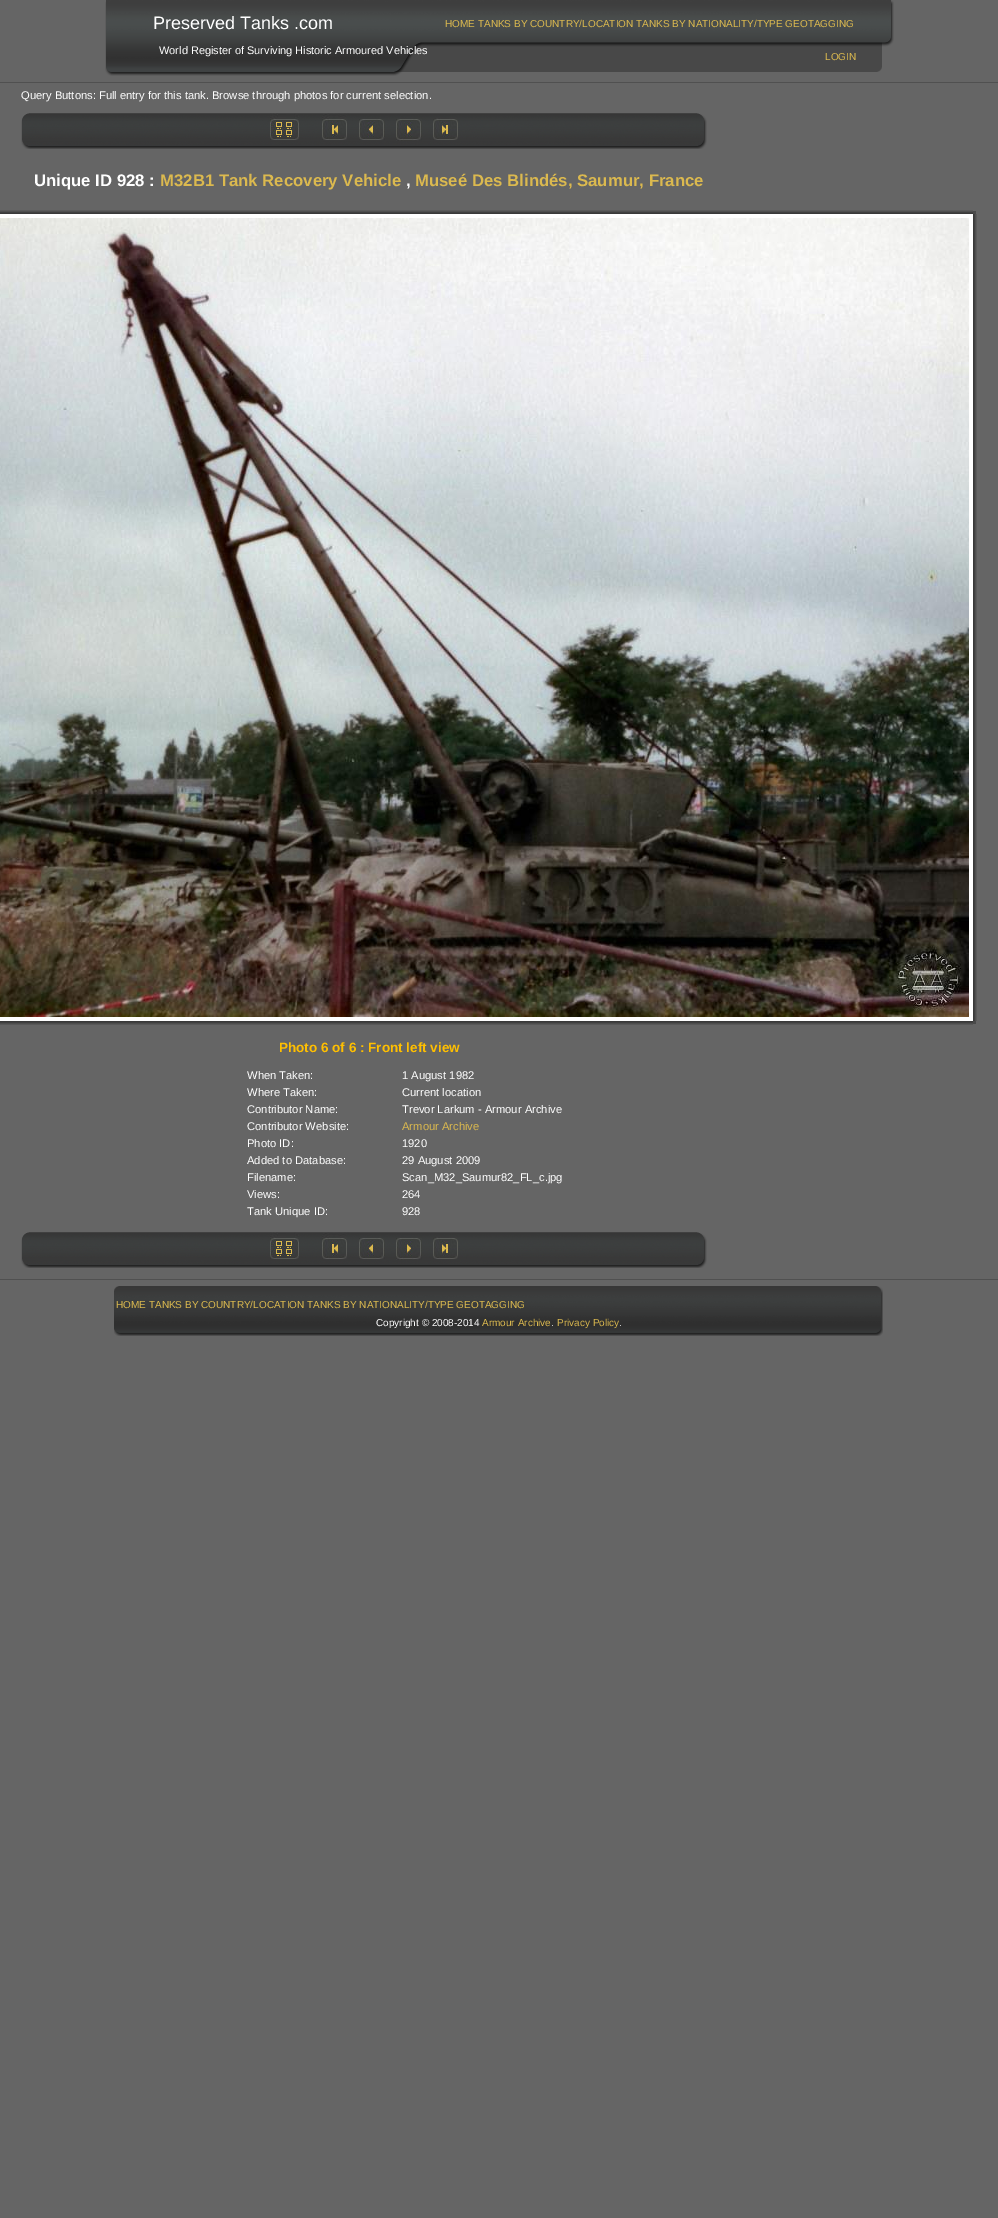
%!PS
<< /PageSize [998 2218] >> setpagedevice
/lw/setlinewidth load def
/co { dup -16 bitshift 255 div exch dup -8 bitshift 255 and 255 div exch 255 and 255 div setrgbcolor } def
/fn { [ exch dup neg 0 0 3 -1 roll 0 0 ] selectfont } def
/tx { co fn moveto show } def
/bx { co rectfill } def
/im { 5 dict begin { /h /w /y /x /name } { exch def } forall
  gsave x y translate w h scale
  w h 8 [w 0 0 h 0 0] name (r) file false 3 colorimage grestore end } def
0 2218 translate 1 -1 scale
4 setmiterlimit
0 0 998 2218 16#656565 bx
(media/1.raw) 105 0 789 76 im
0 82 998 1 16#505050 bx
(media/2.raw) 21 113 686 36 im
(media/3.raw) 270 113 29 27 im
(media/4.raw) 322 113 25 27 im
(media/5.raw) 359 119 26 21 im
(media/6.raw) 396 119 26 22 im
(media/7.raw) 433 118 25 22 im
(media/8.raw) 0 210 973 4 im
973 211 3 3 16#4A4A4A bx
16#FFFFFF co
4 lw
-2 216 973 803 rectstroke
(media/9.raw) 0 218 969 799 im
(media/10.raw) 973 214 4 807 im
(media/11.raw) 0 1021 973 4 im
973 1021 3 3 16#4A4A4A bx
(media/2.raw) 21 1232 686 36 im
(media/3.raw) 270 1232 29 27 im
(media/4.raw) 322 1232 25 27 im
(media/5.raw) 359 1238 26 21 im
(media/6.raw) 396 1238 26 22 im
(media/7.raw) 433 1237 25 22 im
0 1279 998 1 16#505050 bx
(media/12.raw) 114 1286 769 50 im
(Preserved Tanks .com) 153 29 /LiberationSans-Regular 18 16#FFFFFF tx
(World Register of Surviving Historic Armoured Vehicles) 159 54 /LiberationSans-Regular 11 16#FFFFFF tx
(HOME TANKS BY COUNTRY/LOCATION TANKS BY NATIONALITY/TYPE GEOTAGGING) 445 27 /LiberationSans-Regular 10 16#DBB94F tx
(LOGIN) 825 60 /LiberationSans-Regular 10 16#DBB94F tx
(Query Buttons: Full entry for this tank. Browse through photos for current selection.) 21 99 /LiberationSans-Regular 11.2 16#FFFFFF tx
(Unique ID 928 :) 34 186 /LiberationSans-Bold 16.75 16#FFFFFF tx
(M32B1 Tank Recovery Vehicle) 160 186 /LiberationSans-Bold 16.75 16#DBB94F tx
(,) 406 186 /LiberationSans-Bold 16.75 16#FFFFFF tx
(Museé Des Blindés, Saumur, France) 415 186 /LiberationSans-Bold 16.75 16#DBB94F tx
(Photo 6 of 6 : Front left view) 279 1052 /LiberationSans-Bold 13.5 16#FFBF00 tx
(When Taken:) 247 1079 /LiberationSans-Regular 11.2 16#FFFFFF tx
(1 August 1982) 402 1079 /LiberationSans-Regular 11.2 16#FFFFFF tx
(Where Taken:) 247 1096 /LiberationSans-Regular 11.2 16#FFFFFF tx
(Current location) 402 1096 /LiberationSans-Regular 11.2 16#FFFFFF tx
(Contributor Name:) 247 1113 /LiberationSans-Regular 11.2 16#FFFFFF tx
(Trevor Larkum - Armour Archive) 402 1113 /LiberationSans-Regular 11.2 16#FFFFFF tx
(Contributor Website:) 247 1130 /LiberationSans-Regular 11.2 16#FFFFFF tx
(Armour Archive) 402 1130 /LiberationSans-Regular 11.2 16#DBB94F tx
(Photo ID:) 247 1147 /LiberationSans-Regular 11.2 16#FFFFFF tx
(1920) 402 1147 /LiberationSans-Regular 11.2 16#FFFFFF tx
(Added to Database:) 247 1164 /LiberationSans-Regular 11.2 16#FFFFFF tx
(29 August 2009) 402 1164 /LiberationSans-Regular 11.2 16#FFFFFF tx
(Filename:) 247 1181 /LiberationSans-Regular 11.2 16#FFFFFF tx
(Scan_M32_Saumur82_FL_c.jpg) 402 1181 /LiberationSans-Regular 11.2 16#FFFFFF tx
(Views:) 247 1198 /LiberationSans-Regular 11.2 16#FFFFFF tx
(264) 402 1198 /LiberationSans-Regular 11.2 16#FFFFFF tx
(Tank Unique ID:) 247 1215 /LiberationSans-Regular 11.2 16#FFFFFF tx
(928) 402 1215 /LiberationSans-Regular 11.2 16#FFFFFF tx
(HOME TANKS BY COUNTRY/LOCATION TANKS BY NATIONALITY/TYPE GEOTAGGING) 116 1308 /LiberationSans-Regular 10 16#DBB94F tx
(Copyright © 2008-2014) 376 1326 /LiberationSans-Regular 10 16#FFFFFF tx
(Armour Archive) 482 1326 /LiberationSans-Regular 10 16#DBB94F tx
(.) 551 1326 /LiberationSans-Regular 10 16#FFFFFF tx
(Privacy Policy) 557 1326 /LiberationSans-Regular 10 16#DBB94F tx
(.) 619 1326 /LiberationSans-Regular 10 16#FFFFFF tx
showpage
